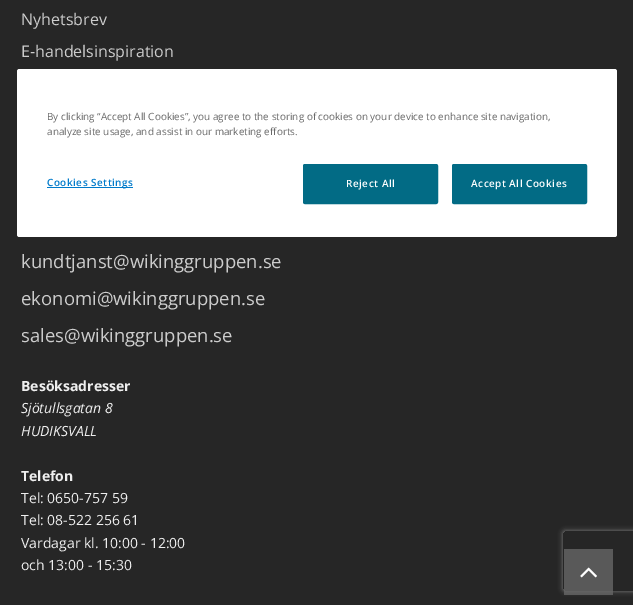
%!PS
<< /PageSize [633 605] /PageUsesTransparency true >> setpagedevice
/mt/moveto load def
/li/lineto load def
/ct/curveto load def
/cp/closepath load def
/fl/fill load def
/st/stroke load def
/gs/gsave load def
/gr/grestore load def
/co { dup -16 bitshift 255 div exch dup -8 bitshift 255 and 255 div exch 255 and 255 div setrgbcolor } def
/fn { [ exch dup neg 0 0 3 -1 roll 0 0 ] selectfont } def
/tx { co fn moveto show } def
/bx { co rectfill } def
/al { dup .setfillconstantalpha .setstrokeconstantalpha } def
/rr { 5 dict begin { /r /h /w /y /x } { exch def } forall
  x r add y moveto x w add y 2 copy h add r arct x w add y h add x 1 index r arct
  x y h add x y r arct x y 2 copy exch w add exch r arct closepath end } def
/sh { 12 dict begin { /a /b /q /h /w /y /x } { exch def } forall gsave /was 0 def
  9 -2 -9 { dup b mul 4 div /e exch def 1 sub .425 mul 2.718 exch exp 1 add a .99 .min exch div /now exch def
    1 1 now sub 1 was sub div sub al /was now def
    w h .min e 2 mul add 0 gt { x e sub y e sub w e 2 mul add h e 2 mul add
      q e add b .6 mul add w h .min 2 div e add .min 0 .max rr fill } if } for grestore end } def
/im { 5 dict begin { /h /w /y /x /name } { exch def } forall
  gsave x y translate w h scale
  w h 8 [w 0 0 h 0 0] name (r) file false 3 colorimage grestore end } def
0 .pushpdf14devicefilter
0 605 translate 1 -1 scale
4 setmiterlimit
0 0 633 605 16#262626 bx
16#FFFFFF co
17 69 600 168 2.5 rr fl
47 187 86 1 16#007ACA bx
16#026B85 co
303.5 164.5 134 39 1.5 rr gs fl gr
st
452.5 164.5 134 39 1.5 rr gs fl gr
st
gs
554 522 mt 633 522 li 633 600 li 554 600 li cp 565 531 mt 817 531 li 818 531 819 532 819 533 ct 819 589 li 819 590 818 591 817 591 ct 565 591 li 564 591 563 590 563 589 ct 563 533 li 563 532 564 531 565 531 ct cp eoclip newpath
16#808080 co
563 531 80 60 2 2.5 1 sh
gr
0.8 al
564 549 49 46 16#666666 bx
1 al
(media/1.raw) 580 567 17 11 im
(Nyhetsbrev) 21 25 /OpenSans-Regular 16 16#CCCCCC tx
(E-handelsinspiration) 21 57 /OpenSans-Regular 16 16#CCCCCC tx
(kundtjanst@wikinggruppen.se) 21 268 /OpenSans-Regular 18.5 16#CCCCCC tx
(ekonomi@wikinggruppen.se) 21 305 /OpenSans-Regular 18.5 16#CCCCCC tx
(sales@wikinggruppen.se) 21 342 /OpenSans-Regular 18.5 16#CCCCCC tx
(Besöksadresser) 21 391 /OpenSans-Bold 14 16#EEEEEE tx
(Sjötullsgatan 8) 21 413 /OpenSans-Italic 14 16#EEEEEE tx
(HUDIKSVALL) 21 436 /OpenSans-Italic 14 16#EEEEEE tx
(Telefon) 21 481 /OpenSans-Bold 14 16#EEEEEE tx
(Tel: 0650-757 59) 21 503 /OpenSans-Regular 14 16#EEEEEE tx
(Tel: 08-522 256 61) 21 525 /OpenSans-Regular 14 16#EEEEEE tx
(Vardagar kl. 10:00 - 12:00) 21 548 /OpenSans-Regular 14 16#EEEEEE tx
(och 13:00 - 15:30) 21 570 /OpenSans-Regular 14 16#EEEEEE tx
(By clicking “Accept All Cookies”, you agree to the storing of cookies on your device to enhance site navigation,) 47 120 /OpenSans-Regular 9.95 16#696969 tx
(analyze site usage, and assist in our marketing efforts.) 47 135 /OpenSans-Regular 9.95 16#696969 tx
/OpenSans-SemiBold 9.95 fn
16#007ACA co
47 186 mt .5 0 (Cookies Settings) ashow
16#FFFFFF co
346 187 mt .5 0 (Reject All) ashow
471 187 mt .5 0 (Accept All Cookies) ashow
.poppdf14devicefilter showpage
